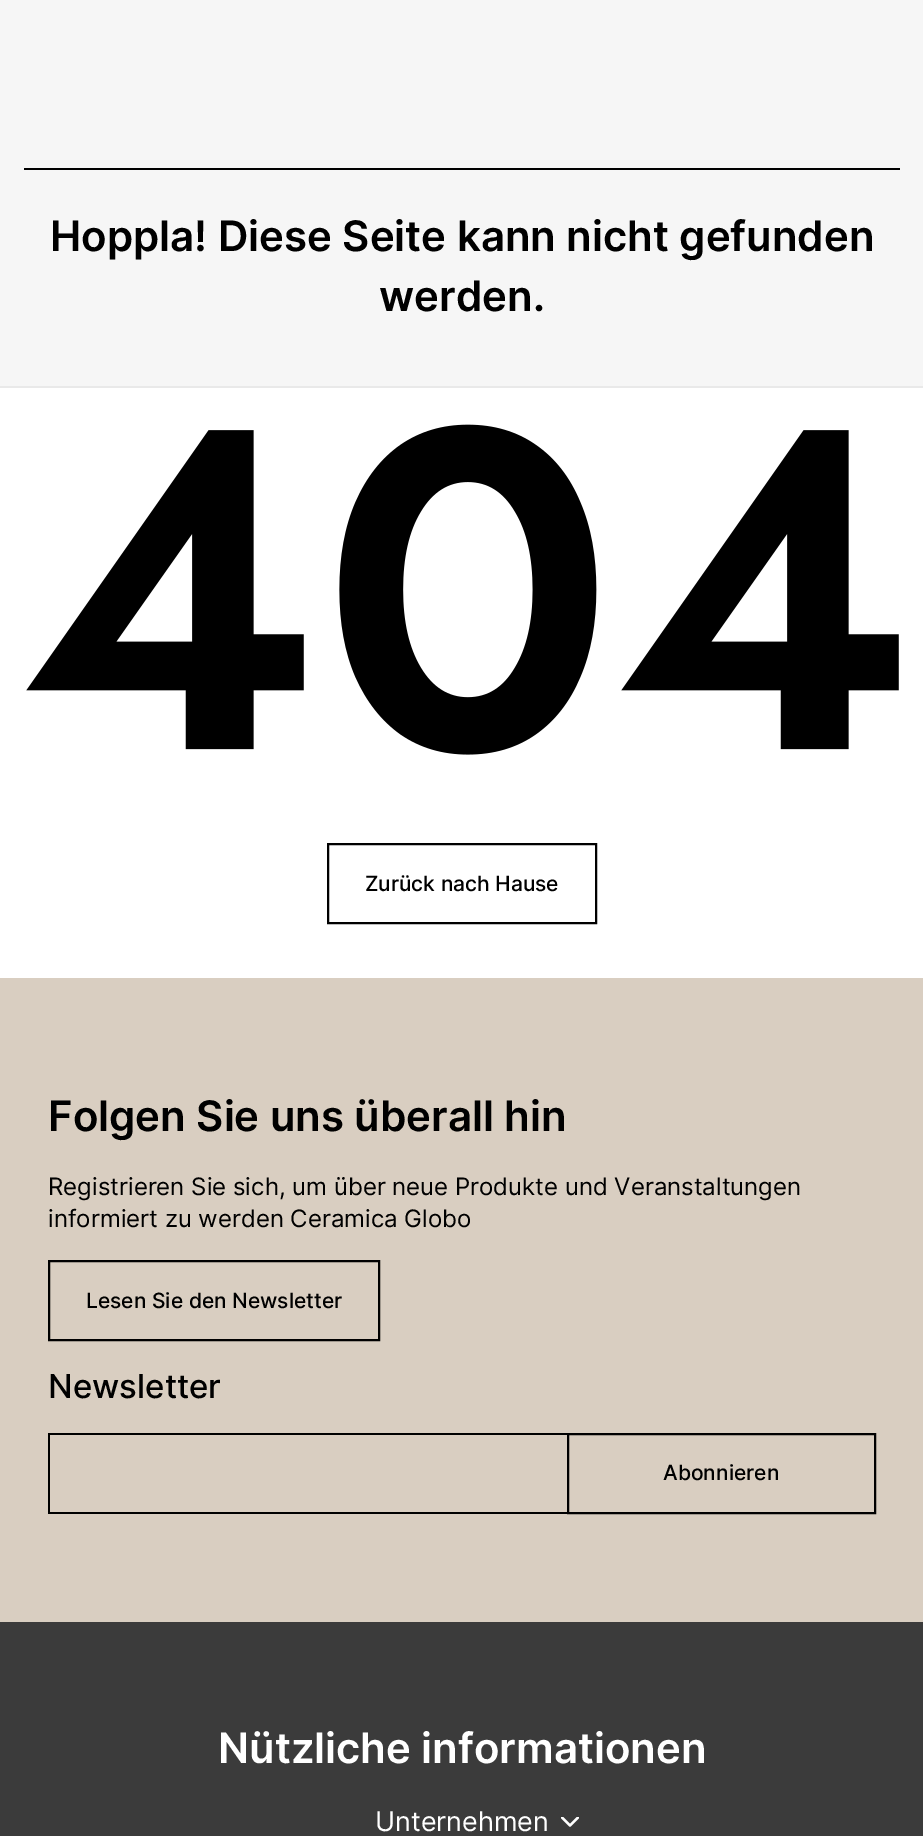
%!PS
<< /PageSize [923 1836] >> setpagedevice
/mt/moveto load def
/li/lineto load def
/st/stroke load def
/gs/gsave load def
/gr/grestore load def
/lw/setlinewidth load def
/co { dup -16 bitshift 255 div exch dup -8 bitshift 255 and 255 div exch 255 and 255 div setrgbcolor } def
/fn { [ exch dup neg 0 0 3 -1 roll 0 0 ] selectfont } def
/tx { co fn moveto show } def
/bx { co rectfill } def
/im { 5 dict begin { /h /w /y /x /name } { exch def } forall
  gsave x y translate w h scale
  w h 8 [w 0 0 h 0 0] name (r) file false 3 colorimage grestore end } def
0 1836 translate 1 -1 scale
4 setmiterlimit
0 0 923 1836 16#FFFFFF bx
0 0 923 386 16#F6F6F6 bx
24 168 876 2 16#000000 bx
0 386 923 2 16#E9E9E9 bx
(media/1.raw) 26 424 873 331 im
16#000000 co
2 lw
328 844 268 79 rectstroke
0 978 923 644 16#D9CEC1 bx
16#000000 co
49 1261 330 79 rectstroke
48 1433 519 2 16#000000 bx
48 1512 519 2 16#000000 bx
48 1433 2 81 16#000000 bx
568 1434 307 79 rectstroke
0 1622 923 214 16#3B3B3B bx
gs
561 1817 18 10 rectclip
16#FFFFFF co
2.4 lw
1 setlinecap
1 setlinejoin
562 1817.5 mt 570 1825.5 li 578 1817.5 li st
gr
(Hoppla! Diese Seite kann nicht gefunden) 50 251 /Inter-SemiBold 42 16#000000 tx
(werden.) 379 311 /Inter-SemiBold 42 16#000000 tx
(Zurück nach Hause) 365 891 /Inter-Medium 21 16#000000 tx
(Folgen Sie uns überall hin) 48 1131 /Inter-SemiBold 42 16#000000 tx
(Registrieren Sie sich, um über neue Produkte und Veranstaltungen) 48 1195 /Inter-Regular 24 16#000000 tx
(informiert zu werden Ceramica Globo) 48 1227 /Inter-Regular 24 16#000000 tx
(Lesen Sie den Newsletter) 86 1308 /Inter-Medium 21 16#000000 tx
(Newsletter) 48 1398 /Inter-Medium 33 16#000000 tx
(Abonnieren) 663 1480 /Inter-Medium 21 16#000000 tx
(Nützliche informationen) 218 1763 /Inter-SemiBold 42 16#FFFFFF tx
(Unternehmen) 375 1831 /Inter-Regular 27 16#FFFFFF tx
showpage
